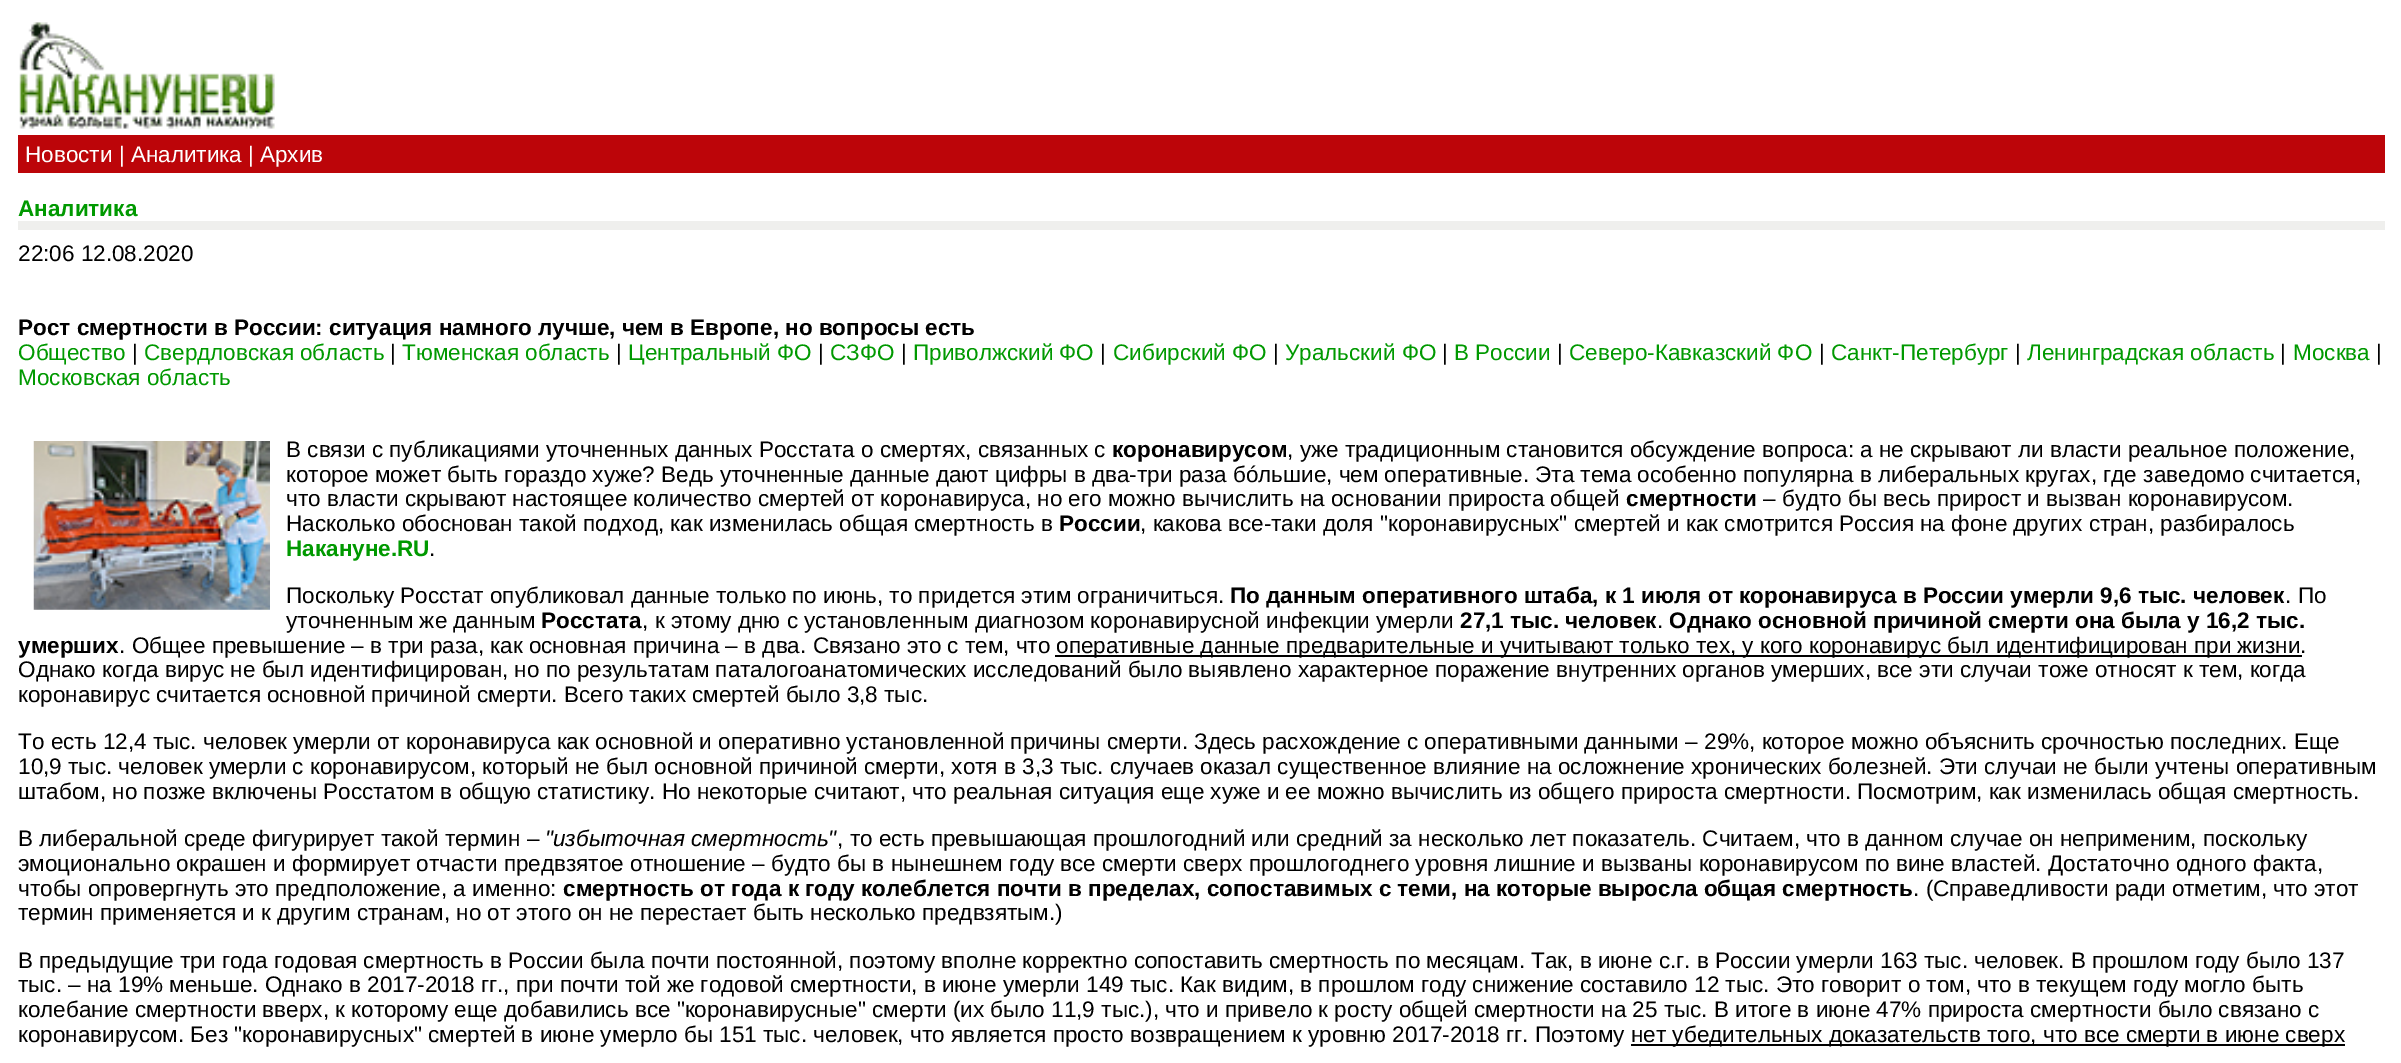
%!PS
<< /PageSize [2401 1063] >> setpagedevice
/co { dup -16 bitshift 255 div exch dup -8 bitshift 255 and 255 div exch 255 and 255 div setrgbcolor } def
/fn { [ exch dup neg 0 0 3 -1 roll 0 0 ] selectfont } def
/tx { co fn moveto show } def
/bx { co rectfill } def
/im { 5 dict begin { /h /w /y /x /name } { exch def } forall
  gsave x y translate w h scale
  w h 8 [w 0 0 h 0 0] name (r) file false 3 colorimage grestore end } def
0 1063 translate 1 -1 scale
4 setmiterlimit
0 0 2401 1063 16#FFFFFF bx
(media/1.raw) 19 22 256 107 im
18 135 2367 38 16#BC0509 bx
18 221 2367 9 16#EFEFED bx
(media/2.raw) 33 441 237 169 im
1055 655 1247 2 16#000000 bx
1631 1044 714 2 16#000000 bx
(Новости | Аналитика | Архив) 25 162 /LiberationSans-Regular 22.5 16#FFFFFF tx
(Аналитика) 18 216 /LiberationSans-Bold 22.5 16#009900 tx
(22:06 12.08.2020) 18 261 /LiberationSans-Regular 22.5 16#000000 tx
(Рост смертности в России: ситуация намного лучше, чем в Европе, но вопросы есть) 18 335 /LiberationSans-Bold 22.5 16#000000 tx
(Общество) 18 360 /LiberationSans-Regular 22.5 16#009900 tx
(|) 132 360 /LiberationSans-Regular 22.5 16#000000 tx
(Свердловская область) 144 360 /LiberationSans-Regular 22.5 16#009900 tx
(|) 390 360 /LiberationSans-Regular 22.5 16#000000 tx
(Тюменская область) 402 360 /LiberationSans-Regular 22.5 16#009900 tx
(|) 616 360 /LiberationSans-Regular 22.5 16#000000 tx
(Центральный ФО) 628 360 /LiberationSans-Regular 22.5 16#009900 tx
(|) 818 360 /LiberationSans-Regular 22.5 16#000000 tx
(СЗФО) 830 360 /LiberationSans-Regular 22.5 16#009900 tx
(|) 901 360 /LiberationSans-Regular 22.5 16#000000 tx
(Приволжский ФО) 913 360 /LiberationSans-Regular 22.5 16#009900 tx
(|) 1100 360 /LiberationSans-Regular 22.5 16#000000 tx
(Сибирский ФО) 1113 360 /LiberationSans-Regular 22.5 16#009900 tx
(|) 1273 360 /LiberationSans-Regular 22.5 16#000000 tx
(Уральский ФО) 1285 360 /LiberationSans-Regular 22.5 16#009900 tx
(|) 1442 360 /LiberationSans-Regular 22.5 16#000000 tx
(В России) 1454 360 /LiberationSans-Regular 22.5 16#009900 tx
(|) 1557 360 /LiberationSans-Regular 22.5 16#000000 tx
(Северо-Кавказский ФО) 1569 360 /LiberationSans-Regular 22.5 16#009900 tx
(|) 1819 360 /LiberationSans-Regular 22.5 16#000000 tx
(Санкт-Петербург) 1831 360 /LiberationSans-Regular 22.5 16#009900 tx
(|) 2015 360 /LiberationSans-Regular 22.5 16#000000 tx
(Ленинградская область) 2027 360 /LiberationSans-Regular 22.5 16#009900 tx
(|) 2280 360 /LiberationSans-Regular 22.5 16#000000 tx
(Москва) 2293 360 /LiberationSans-Regular 22.5 16#009900 tx
(|) 2376 360 /LiberationSans-Regular 22.5 16#000000 tx
(Московская область) 18 385 /LiberationSans-Regular 22.5 16#009900 tx
(В связи с публикациями уточненных данных Росстата о смертях, связанных с) 286 457 /LiberationSans-Regular 22.5 16#000000 tx
(коронавирусом) 1112 457 /LiberationSans-Bold 22.5 16#000000 tx
(, уже традиционным становится обсуждение вопроса: а не скрывают ли власти реальное положение,) 1287 457 /LiberationSans-Regular 22.5 16#000000 tx
(которое может быть гораздо хуже? Ведь уточненные данные дают цифры в два-три раза бóльшие, чем оперативные. Эта тема особенно популярна в либеральных кругах, где заведомо считается,) 286 482 /LiberationSans-Regular 22.5 16#000000 tx
(что власти скрывают настоящее количество смертей от коронавируса, но его можно вычислить на основании прироста общей) 286 506 /LiberationSans-Regular 22.5 16#000000 tx
(смертности) 1626 506 /LiberationSans-Bold 22.5 16#000000 tx
(– будто бы весь прирост и вызван коронавирусом.) 1763 506 /LiberationSans-Regular 22.5 16#000000 tx
(Насколько обоснован такой подход, как изменилась общая смертность в) 286 531 /LiberationSans-Regular 22.5 16#000000 tx
(России) 1059 531 /LiberationSans-Bold 22.5 16#000000 tx
(, какова все-таки доля "коронавирусных" смертей и как смотрится Россия на фоне других стран, разбиралось) 1140 531 /LiberationSans-Regular 22.5 16#000000 tx
(Накануне.RU) 286 556 /LiberationSans-Bold 22.5 16#009900 tx
(.) 429 556 /LiberationSans-Regular 22.5 16#000000 tx
(Поскольку Росстат опубликовал данные только по июнь, то придется этим ограничиться.) 286 603 /LiberationSans-Regular 22.5 16#000000 tx
(По данным оперативного штаба, к 1 июля от коронавируса в России умерли 9,6 тыс. человек) 1230 603 /LiberationSans-Bold 22.5 16#000000 tx
(. По) 2285 603 /LiberationSans-Regular 22.5 16#000000 tx
(уточненным же данным) 286 628 /LiberationSans-Regular 22.5 16#000000 tx
(Росстата) 541 628 /LiberationSans-Bold 22.5 16#000000 tx
(, к этому дню с установленным диагнозом коронавирусной инфекции умерли) 642 628 /LiberationSans-Regular 22.5 16#000000 tx
(27,1 тыс. человек) 1460 628 /LiberationSans-Bold 22.5 16#000000 tx
(.) 1657 628 /LiberationSans-Regular 22.5 16#000000 tx
(Однако основной причиной смерти она была у 16,2 тыс.) 1669 628 /LiberationSans-Bold 22.5 16#000000 tx
(умерших) 18 653 /LiberationSans-Bold 22.5 16#000000 tx
(. Общее превышение – в три раза, как основная причина – в два. Связано это с тем, что) 119 653 /LiberationSans-Regular 22.5 16#000000 tx
(оперативные данные предварительные и учитывают только тех, у кого коронавирус был идентифицирован при жизни.) 1056 653 /LiberationSans-Regular 22.5 16#000000 tx
(Однако когда вирус не был идентифицирован, но по результатам паталогоанатомических исследований было выявлено характерное поражение внутренних органов умерших, все эти случаи тоже относят к тем, когда) 18 677 /LiberationSans-Regular 22.5 16#000000 tx
(коронавирус считается основной причиной смерти. Всего таких смертей было 3,8 тыс.) 18 702 /LiberationSans-Regular 22.5 16#000000 tx
(То есть 12,4 тыс. человек умерли от коронавируса как основной и оперативно установленной причины смерти. Здесь расхождение с оперативными данными – 29%, которое можно объяснить срочностью последних. Еще) 18 749 /LiberationSans-Regular 22.5 16#000000 tx
(10,9 тыс. человек умерли с коронавирусом, который не был основной причиной смерти, хотя в 3,3 тыс. случаев оказал существенное влияние на осложнение хронических болезней. Эти случаи не были учтены оперативным) 18 774 /LiberationSans-Regular 22.5 16#000000 tx
(штабом, но позже включены Росстатом в общую статистику. Но некоторые считают, что реальная ситуация еще хуже и ее можно вычислить из общего прироста смертности. Посмотрим, как изменилась общая смертность.) 18 799 /LiberationSans-Regular 22.5 16#000000 tx
(В либеральной среде фигурирует такой термин –) 18 846 /LiberationSans-Regular 22.5 16#000000 tx
("избыточная смертность") 545 846 /LiberationSans-Italic 22.5 16#000000 tx
(, то есть превышающая прошлогодний или средний за несколько лет показатель. Считаем, что в данном случае он неприменим, поскольку) 837 846 /LiberationSans-Regular 22.5 16#000000 tx
(эмоционально окрашен и формирует отчасти предвзятое отношение – будто бы в нынешнем году все смерти сверх прошлогоднего уровня лишние и вызваны коронавирусом по вине властей. Достаточно одного факта,) 18 871 /LiberationSans-Regular 22.5 16#000000 tx
(чтобы опровергнуть это предположение, а именно:) 18 896 /LiberationSans-Regular 22.5 16#000000 tx
(смертность от года к году колеблется почти в пределах, сопоставимых с теми, на которые выросла общая смертность) 563 896 /LiberationSans-Bold 22.5 16#000000 tx
(. \(Справедливости ради отметим, что этот) 1913 896 /LiberationSans-Regular 22.5 16#000000 tx
(термин применяется и к другим странам, но от этого он не перестает быть несколько предвзятым.\)) 18 920 /LiberationSans-Regular 22.5 16#000000 tx
(В предыдущие три года годовая смертность в России была почти постоянной, поэтому вполне корректно сопоставить смертность по месяцам. Так, в июне с.г. в России умерли 163 тыс. человек. В прошлом году было 137) 18 968 /LiberationSans-Regular 22.5 16#000000 tx
(тыс. – на 19% меньше. Однако в 2017-2018 гг., при почти той же годовой смертности, в июне умерли 149 тыс. Как видим, в прошлом году снижение составило 12 тыс. Это говорит о том, что в текущем году могло быть) 18 992 /LiberationSans-Regular 22.5 16#000000 tx
(колебание смертности вверх, к которому еще добавились все "коронавирусные" смерти \(их было 11,9 тыс.\), что и привело к росту общей смертности на 25 тыс. В итоге в июне 47% прироста смертности было связано с) 18 1017 /LiberationSans-Regular 22.5 16#000000 tx
(коронавирусом. Без "коронавирусных" смертей в июне умерло бы 151 тыс. человек, что является просто возвращением к уровню 2017-2018 гг. Поэтому) 18 1042 /LiberationSans-Regular 22.5 16#000000 tx
(нет убедительных доказательств того, что все смерти в июне сверх) 1631 1042 /LiberationSans-Regular 22.5 16#000000 tx
showpage
